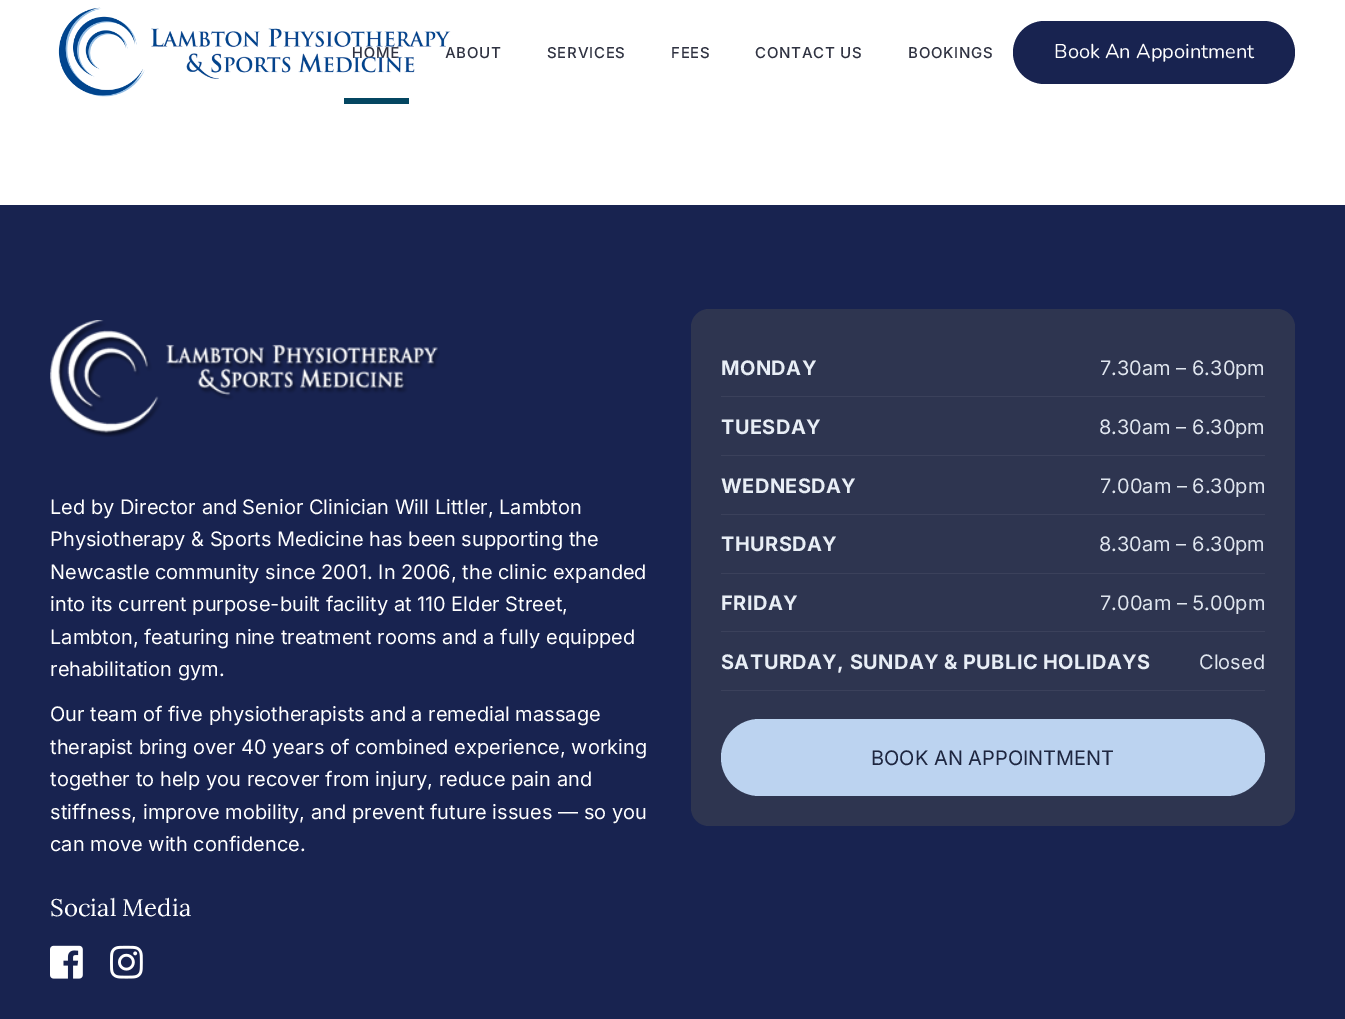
%!PS
<< /PageSize [1345 1019] >> setpagedevice
/mt/moveto load def
/fl/fill load def
/co { dup -16 bitshift 255 div exch dup -8 bitshift 255 and 255 div exch 255 and 255 div setrgbcolor } def
/fn { [ exch dup neg 0 0 3 -1 roll 0 0 ] selectfont } def
/tx { co fn moveto show } def
/bx { co rectfill } def
/rr { 5 dict begin { /r /h /w /y /x } { exch def } forall
  x r add y moveto x w add y 2 copy h add r arct x w add y h add x 1 index r arct
  x y h add x y r arct x y 2 copy exch w add exch r arct closepath end } def
/im { 5 dict begin { /h /w /y /x /name } { exch def } forall
  gsave x y translate w h scale
  w h 8 [w 0 0 h 0 0] name (r) file false 3 colorimage grestore end } def
0 1019 translate 1 -1 scale
4 setmiterlimit
0 0 1345 1019 16#FFFFFF bx
344 98 65 6 16#044661 bx
16#182350 co
1013 21 282 63 31.5 rr fl
0 205 1345 814 16#182350 bx
(media/2.raw) 50 320 390 117 im
(media/3.raw) 50 945 33 34 im
(media/4.raw) 110 945 33 34 im
16#2E3550 co
691 309 604 517 18 rr fl
721 396 544 1 16#3B415B bx
721 455 544 1 16#3B415B bx
721 514 544 1 16#3B415B bx
721 573 544 1 16#3B415B bx
721 631 544 1 16#3B415B bx
721 690 544 1 16#3B415B bx
16#BCD3F0 co
721 719 544 77 38.5 rr fl
/Inter-Medium 15 fn
16#2F3241 co
352 58 mt .75 0 (HOME) ashow
445 58 mt .75 0 (ABOUT) ashow
(media/1.raw) 58 7 393 90 im
547 58 mt .75 0 (SERVICES) ashow
671 58 mt .75 0 (FEES) ashow
755 58 mt .75 0 (CONTACT US) ashow
908 58 mt .75 0 (BOOKINGS) ashow
(Book An Appointment) 1054 58 /Nunito-Regular 20 16#FFFFFF tx
(Led by Director and Senior Clinician Will Littler, Lambton) 50 514 /Inter-Regular 20 16#FFFFFF tx
(Physiotherapy & Sports Medicine has been supporting the) 50 546 /Inter-Regular 20 16#FFFFFF tx
(Newcastle community since 2001. In 2006, the clinic expanded) 50 579 /Inter-Regular 20 16#FFFFFF tx
(into its current purpose-built facility at 110 Elder Street,) 50 611 /Inter-Regular 20 16#FFFFFF tx
(Lambton, featuring nine treatment rooms and a fully equipped) 50 644 /Inter-Regular 20 16#FFFFFF tx
(rehabilitation gym.) 50 676 /Inter-Regular 20 16#FFFFFF tx
(Our team of five physiotherapists and a remedial massage) 50 721 /Inter-Regular 20 16#FFFFFF tx
(therapist bring over 40 years of combined experience, working) 50 754 /Inter-Regular 20 16#FFFFFF tx
(together to help you recover from injury, reduce pain and) 50 786 /Inter-Regular 20 16#FFFFFF tx
(stiffness, improve mobility, and prevent future issues — so you) 50 819 /Inter-Regular 20 16#FFFFFF tx
(can move with confidence.) 50 851 /Inter-Regular 20 16#FFFFFF tx
(Social Media) 50 916 /Lora-Regular 24 16#FFFFFF tx
/Inter-Bold 20 fn
16#E8EEF6 co
721 375 mt .4 0 (MONDAY) ashow
(7.30am – 6.30pm) 1100 375 /Inter-Regular 20 16#DFE5EE tx
/Inter-Bold 20 fn
16#E8EEF6 co
721 434 mt .4 0 (TUESDAY) ashow
(8.30am – 6.30pm) 1099 434 /Inter-Regular 20 16#DFE5EE tx
/Inter-Bold 20 fn
16#E8EEF6 co
721 493 mt .4 0 (WEDNESDAY) ashow
(7.00am – 6.30pm) 1100 493 /Inter-Regular 20 16#DFE5EE tx
/Inter-Bold 20 fn
16#E8EEF6 co
721 551 mt .4 0 (THURSDAY) ashow
(8.30am – 6.30pm) 1099 551 /Inter-Regular 20 16#DFE5EE tx
/Inter-Bold 20 fn
16#E8EEF6 co
721 610 mt .4 0 (FRIDAY) ashow
(7.00am – 5.00pm) 1100 610 /Inter-Regular 20 16#DFE5EE tx
/Inter-Bold 20 fn
16#E8EEF6 co
721 669 mt .4 0 (SATURDAY, SUNDAY & PUBLIC HOLIDAYS) ashow
(Closed) 1199 669 /Inter-Regular 20 16#DFE5EE tx
(BOOK AN APPOINTMENT) 871 765 /Inter-Regular 20 16#1E2640 tx
showpage
